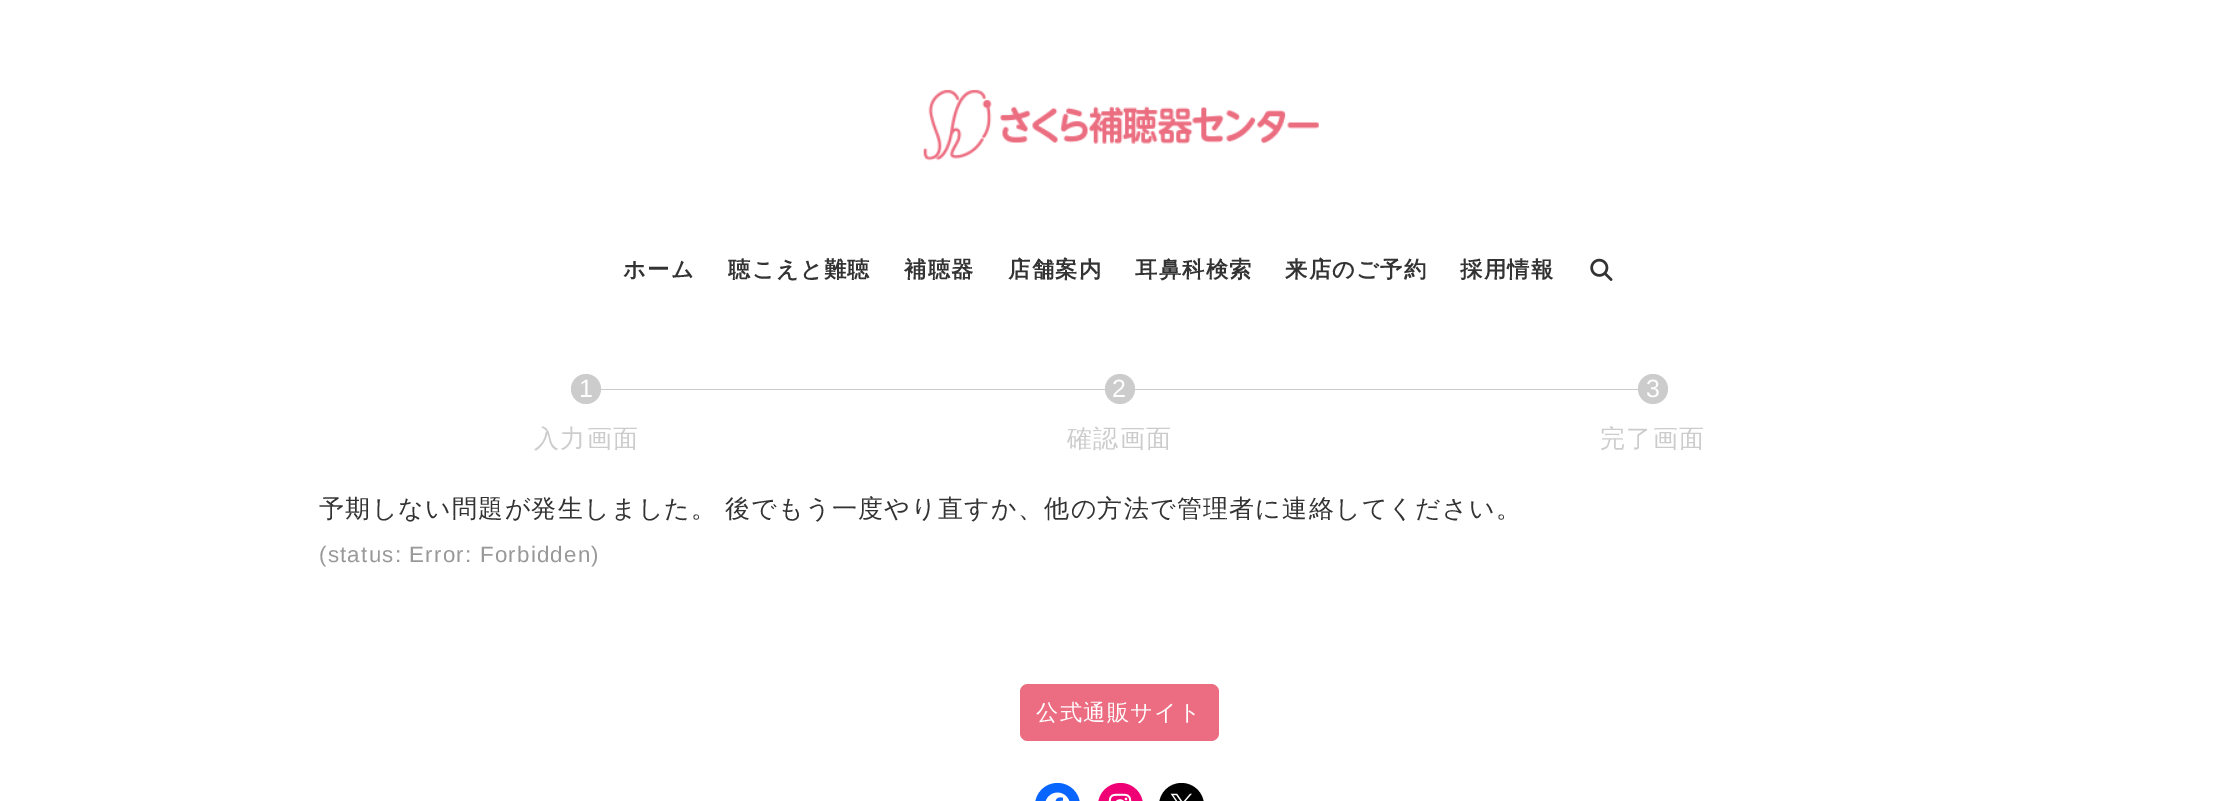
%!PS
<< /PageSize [2238 801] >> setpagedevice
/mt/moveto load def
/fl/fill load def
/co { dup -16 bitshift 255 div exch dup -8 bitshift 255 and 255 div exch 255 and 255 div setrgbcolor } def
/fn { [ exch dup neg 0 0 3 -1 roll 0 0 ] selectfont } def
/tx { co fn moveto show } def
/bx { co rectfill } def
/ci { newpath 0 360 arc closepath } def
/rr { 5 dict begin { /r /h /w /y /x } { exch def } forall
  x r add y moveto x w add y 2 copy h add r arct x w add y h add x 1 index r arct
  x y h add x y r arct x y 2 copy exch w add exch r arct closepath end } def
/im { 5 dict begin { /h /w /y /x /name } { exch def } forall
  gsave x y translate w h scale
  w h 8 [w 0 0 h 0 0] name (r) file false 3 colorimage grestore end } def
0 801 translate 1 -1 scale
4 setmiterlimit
0 0 2238 801 16#FFFFFF bx
(media/1.raw) 923 89 396 72 im
(media/2.raw) 1590 258 23 23 im
600 389 506 1 16#CCCCCC bx
586 389 15 ci fl
1134 389 505 1 16#CCCCCC bx
1120 389 15 ci fl
1653 389 15 ci fl
16#EC6D81 co
1020 684 199 57 8 rr fl
16#0866FF co
1035 783 45 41 22.5 rr fl
(media/3.raw) 1045 792 25 9 im
16#F00075 co
1098 783 45 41 22.5 rr fl
(media/4.raw) 1108 793 24 8 im
16#000000 co
1159 783 45 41 22.5 rr fl
(media/5.raw) 1170 793 22 8 im
/WenQuanYiZenHei-Bold 22.25 fn
16#333333 co
623 277 mt 1.25 0 (ホーム) ashow
728 277 mt 1.25 0 (聴こえと難聴) ashow
904 277 mt 1.25 0 (補聴器) ashow
1008 277 mt 1.25 0 (店舗案内) ashow
1135 277 mt 1.25 0 (耳鼻科検索) ashow
1285 277 mt 1.25 0 (来店のご予約) ashow
1460 277 mt 1.25 0 (採用情報) ashow
(1) 579 397 /LiberationSans-Regular 25 16#FFFFFF tx
/WenQuanYiZenHei-Medium 25 fn
16#CCCCCC co
534 447 mt 1.25 0 (入力画面) ashow
(2) 1112 397 /LiberationSans-Regular 25 16#FFFFFF tx
/WenQuanYiZenHei-Medium 25 fn
16#CCCCCC co
1067 447 mt 1.25 0 (確認画面) ashow
(3) 1646 397 /LiberationSans-Regular 25 16#FFFFFF tx
/WenQuanYiZenHei-Medium 25 fn
16#CCCCCC co
1600 447 mt 1.25 0 (完了画面) ashow
16#333333 co
319 517 mt -1 0 32 1.25 0 (予期しない問題が発生しました。 後でもう一度やり直すか、他の方法で管理者に連絡してください。) awidthshow
/LiberationSans-Regular 22.25 fn
16#999999 co
319 562 mt 1.25 0 (\(status: Error: Forbidden\)) ashow
/WenQuanYiZenHei-Medium 22.25 fn
16#FFFFFF co
1036 720 mt 1.25 0 (公式通販サイト) ashow
showpage
